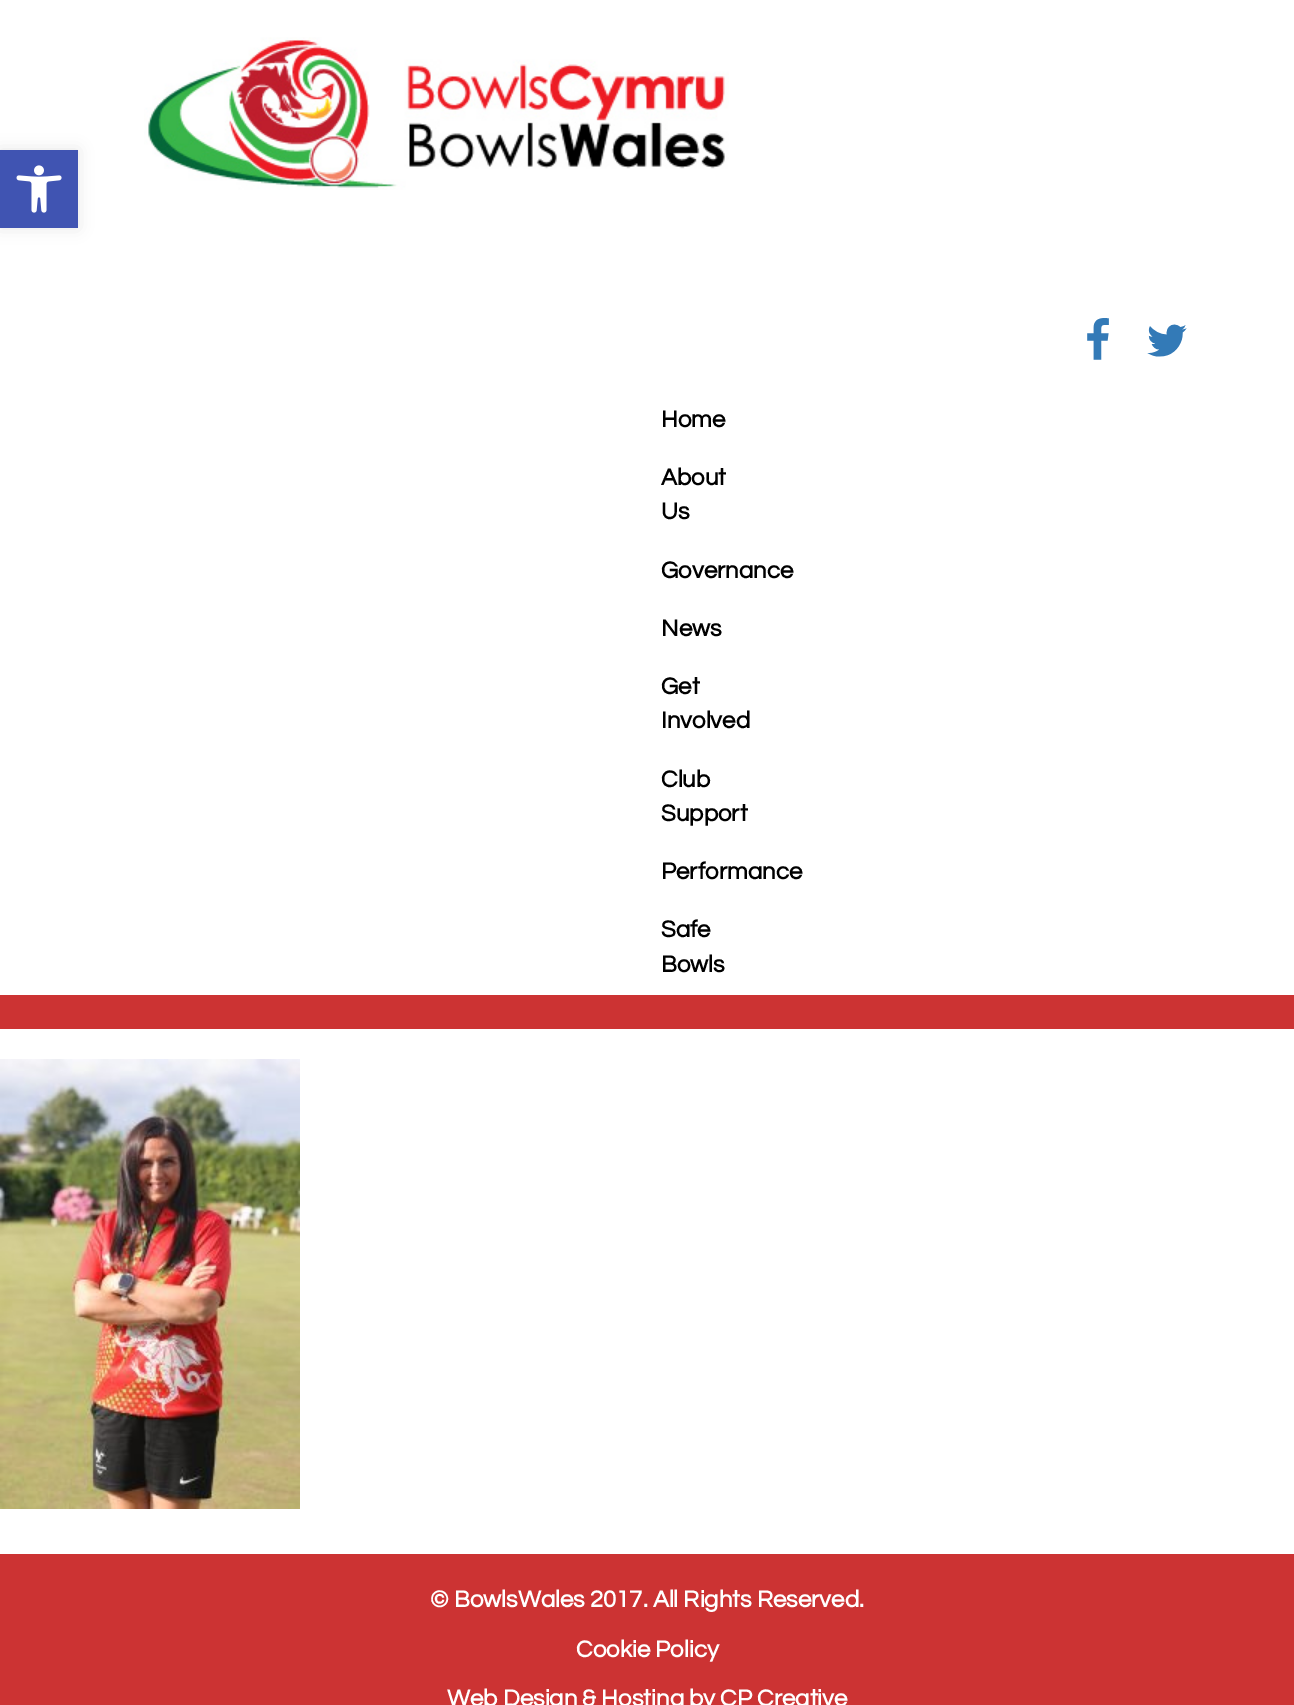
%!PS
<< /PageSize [1294 1705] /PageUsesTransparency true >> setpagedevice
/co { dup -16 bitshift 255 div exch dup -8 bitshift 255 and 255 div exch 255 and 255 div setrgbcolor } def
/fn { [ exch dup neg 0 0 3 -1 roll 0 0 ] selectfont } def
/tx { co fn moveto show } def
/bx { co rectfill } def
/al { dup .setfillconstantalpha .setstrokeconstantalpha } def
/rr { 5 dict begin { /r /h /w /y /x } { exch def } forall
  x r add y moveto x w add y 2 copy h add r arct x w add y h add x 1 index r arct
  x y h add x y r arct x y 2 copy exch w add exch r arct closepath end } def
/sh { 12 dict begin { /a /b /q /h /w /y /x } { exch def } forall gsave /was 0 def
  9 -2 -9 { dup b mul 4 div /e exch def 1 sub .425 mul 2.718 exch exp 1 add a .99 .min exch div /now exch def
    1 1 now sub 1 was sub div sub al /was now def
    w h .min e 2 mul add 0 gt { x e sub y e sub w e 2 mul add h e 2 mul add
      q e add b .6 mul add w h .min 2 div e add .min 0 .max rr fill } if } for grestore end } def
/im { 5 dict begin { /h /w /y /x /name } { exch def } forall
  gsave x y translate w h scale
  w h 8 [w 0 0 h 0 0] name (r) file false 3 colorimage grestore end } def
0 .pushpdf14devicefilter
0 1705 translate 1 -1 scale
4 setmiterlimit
0 0 1294 1705 16#FFFFFF bx
16#000000 co
0 150 78 78 0 7.5 .1 sh
0 150 78 78 16#4054B2 bx
(media/1.raw) 16 165 46 48 im
(media/2.raw) 144 37 585 153 im
(media/3.raw) 1087 318 22 42 im
(media/4.raw) 1147 324 40 33 im
0 995 1294 34 16#CC3333 bx
(media/5.raw) 0 1059 300 450 im
0 1554 1294 151 16#CC3333 bx
(Home) 661 427 /Questrial-Bold 24 16#000000 tx
(About) 661 485 /Questrial-Bold 24 16#000000 tx
(Us) 661 519 /Questrial-Bold 24 16#000000 tx
(Governance) 661 578 /Questrial-Bold 24 16#000000 tx
(News) 661 636 /Questrial-Bold 24 16#000000 tx
(Get) 661 694 /Questrial-Bold 24 16#000000 tx
(Involved) 661 728 /Questrial-Bold 24 16#000000 tx
(Club) 661 787 /Questrial-Bold 24 16#000000 tx
(Support) 661 821 /Questrial-Bold 24 16#000000 tx
(Performance) 661 879 /Questrial-Bold 24 16#000000 tx
(Safe) 661 937 /Questrial-Bold 24 16#000000 tx
(Bowls) 661 972 /Questrial-Bold 24 16#000000 tx
(© BowlsWales 2017. All Rights Reserved.) 430 1607 /Questrial-Bold 24 16#FFFFFF tx
(Cookie Policy) 576 1657 /Questrial-Bold 24 16#FFFFFF tx
(Web Design & Hosting by CP Creative) 447 1706 /Questrial-Bold 24 16#FFFFFF tx
.poppdf14devicefilter showpage
